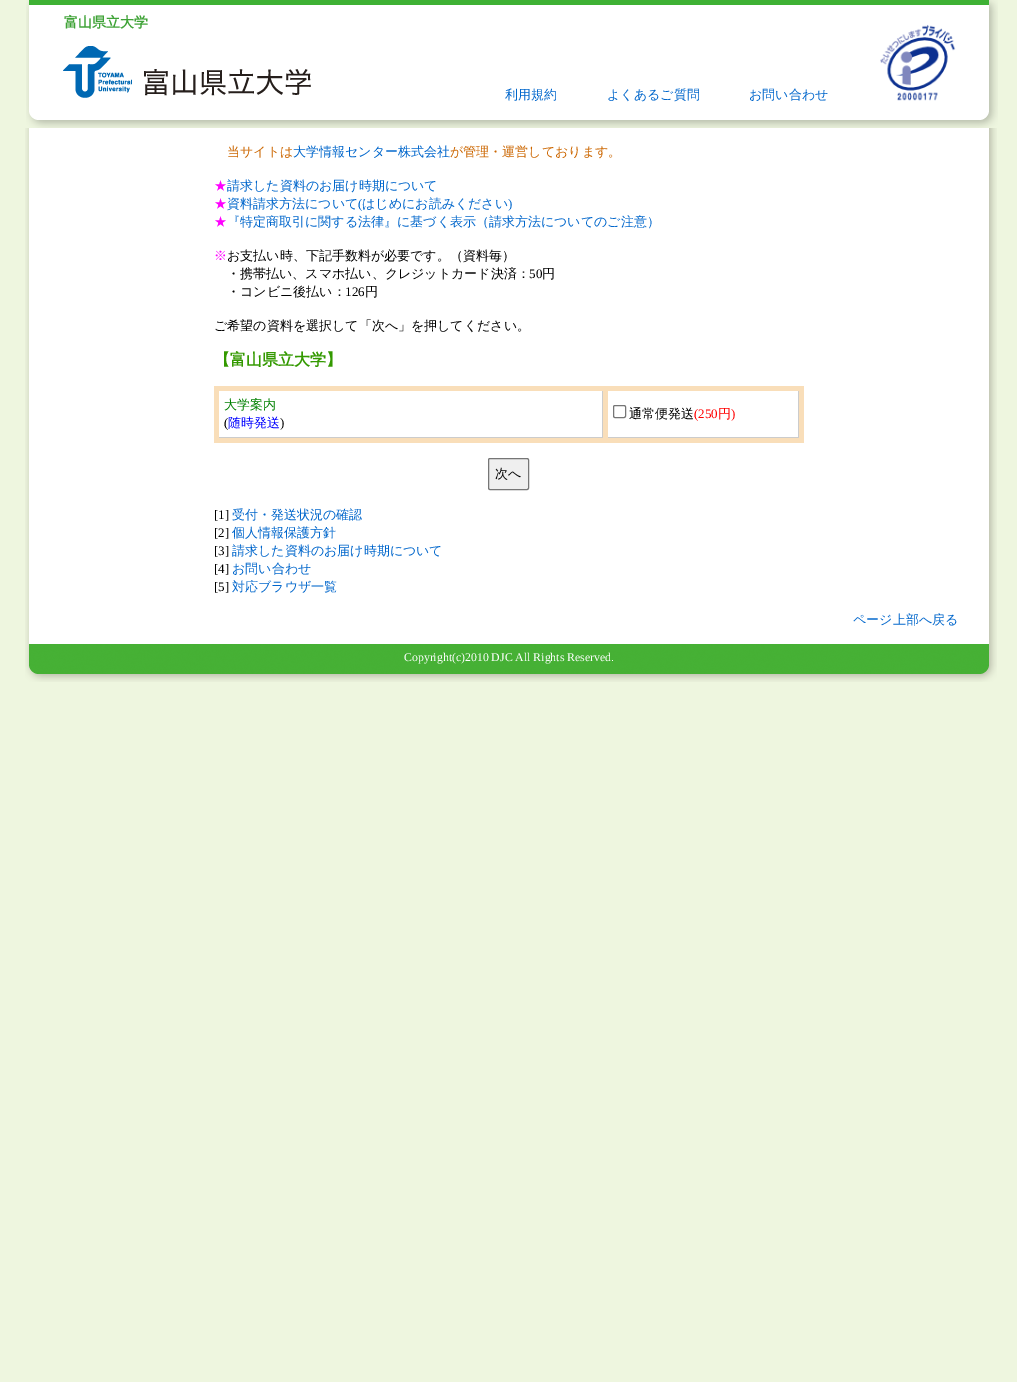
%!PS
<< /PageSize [1017 1382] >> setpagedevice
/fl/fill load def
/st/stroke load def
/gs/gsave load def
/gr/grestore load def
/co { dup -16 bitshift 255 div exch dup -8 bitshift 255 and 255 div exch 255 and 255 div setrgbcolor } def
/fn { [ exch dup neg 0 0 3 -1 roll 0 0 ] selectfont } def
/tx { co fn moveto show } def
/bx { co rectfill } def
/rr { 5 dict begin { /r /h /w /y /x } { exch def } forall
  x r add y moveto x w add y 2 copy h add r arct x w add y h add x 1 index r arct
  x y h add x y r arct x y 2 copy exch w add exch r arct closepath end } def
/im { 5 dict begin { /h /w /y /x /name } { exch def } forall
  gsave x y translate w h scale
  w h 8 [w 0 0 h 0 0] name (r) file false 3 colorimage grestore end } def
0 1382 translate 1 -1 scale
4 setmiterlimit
0 0 1017 1382 16#EEF6DF bx
(media/1.raw) 26 0 972 128 im
(media/2.raw) 63 46 248 52 im
(media/3.raw) 880 24 76 77 im
(media/4.raw) 25 128 972 483 im
214 386 590 57 16#F9DEB9 bx
219 391 383 46 16#FFFFFF bx
602 391 1 47 16#CCCCCC bx
219 437 384 1 16#CCCCCC bx
608 391 190 46 16#FFFFFF bx
798 391 1 47 16#CCCCCC bx
608 437 191 1 16#CCCCCC bx
16#767676 co
613.5 405.5 12 12 1.5 rr st
16#EFEFEF co
488.5 458.5 40 31 1.5 rr gs fl gr
16#767676 co
st
(media/5.raw) 25 611 972 33 im
(media/6.raw) 25 644 972 38 im
612 660 1 1 16#FFFFFF bx
(富山県立大学) 64 27 /WenQuanYiZenHei-Bold 14 16#3FA337 tx
(利用規約) 505 99 /WenQuanYiZenHei-Medium 13 16#0066CC tx
(よくあるご質問) 607 99 /WenQuanYiZenHei-Medium 13 16#0066CC tx
(お問い合わせ) 749 99 /WenQuanYiZenHei-Medium 13 16#0066CC tx
(当サイトは) 227 156 /WenQuanYiZenHei-Medium 13 16#CC6600 tx
(大学情報センター株式会社) 293 156 /WenQuanYiZenHei-Medium 13 16#0066CC tx
(が管理・運営しております。) 450 156 /WenQuanYiZenHei-Medium 13 16#CC6600 tx
(★) 214 190 /WenQuanYiZenHei-Medium 13 16#FF00FF tx
(請求した資料のお届け時期について) 227 190 /WenQuanYiZenHei-Medium 13 16#0066CC tx
(★) 214 208 /WenQuanYiZenHei-Medium 13 16#FF00FF tx
(資料請求方法について) 227 208 /WenQuanYiZenHei-Medium 13 16#0066CC tx
(\() 358 208 /LiberationSerif-Regular 13 16#0066CC tx
(はじめにお読みください) 362 208 /WenQuanYiZenHei-Medium 13 16#0066CC tx
(\)) 508 208 /LiberationSerif-Regular 13 16#0066CC tx
(★) 214 226 /WenQuanYiZenHei-Medium 13 16#FF00FF tx
(『特定商取引に関する法律』に基づく表示（請求方法についてのご注意）) 227 226 /WenQuanYiZenHei-Medium 13 16#0066CC tx
(※) 214 260 /WenQuanYiZenHei-Medium 13 16#FF00FF tx
(お支払い時、下記手数料が必要です。（資料毎）) 227 260 /WenQuanYiZenHei-Medium 13 16#000000 tx
(・携帯払い、スマホ払い、クレジットカード決済：) 227 278 /WenQuanYiZenHei-Medium 13 16#000000 tx
(50) 529 278 /LiberationSerif-Regular 13 16#000000 tx
(円) 542 278 /WenQuanYiZenHei-Medium 13 16#000000 tx
(・コンビニ後払い：) 227 296 /WenQuanYiZenHei-Medium 13 16#000000 tx
(126) 345 296 /LiberationSerif-Regular 13 16#000000 tx
(円) 365 296 /WenQuanYiZenHei-Medium 13 16#000000 tx
(ご希望の資料を選択して「次へ」を押してください。) 214 330 /WenQuanYiZenHei-Medium 13 16#000000 tx
(【富山県立大学】) 214 365 /WenQuanYiZenHei-Bold 16 16#339900 tx
(大学案内) 224 409 /WenQuanYiZenHei-Medium 13 16#008000 tx
(\() 224 427 /LiberationSerif-Regular 13 16#000000 tx
(随時発送) 228 427 /WenQuanYiZenHei-Medium 13 16#0000FF tx
(\)) 280 427 /LiberationSerif-Regular 13 16#000000 tx
(通常便発送) 629 418 /WenQuanYiZenHei-Medium 13 16#000000 tx
(\(250) 694 418 /LiberationSerif-Regular 13 16#FF0000 tx
(円) 718 418 /WenQuanYiZenHei-Medium 13 16#FF0000 tx
(\)) 731 418 /LiberationSerif-Regular 13 16#FF0000 tx
(次へ) 495 478 /WenQuanYiZenHei-Medium 13 16#000000 tx
([1]) 214 519 /LiberationSerif-Regular 13 16#000000 tx
(受付・発送状況の確認) 232 519 /WenQuanYiZenHei-Medium 13 16#0066CC tx
([2]) 214 537 /LiberationSerif-Regular 13 16#000000 tx
(個人情報保護方針) 232 537 /WenQuanYiZenHei-Medium 13 16#0066CC tx
([3]) 214 555 /LiberationSerif-Regular 13 16#000000 tx
(請求した資料のお届け時期について) 232 555 /WenQuanYiZenHei-Medium 13 16#0066CC tx
([4]) 214 573 /LiberationSerif-Regular 13 16#000000 tx
(お問い合わせ) 232 573 /WenQuanYiZenHei-Medium 13 16#0066CC tx
([5]) 214 591 /LiberationSerif-Regular 13 16#000000 tx
(対応ブラウザ一覧) 232 591 /WenQuanYiZenHei-Medium 13 16#0066CC tx
(ページ上部へ戻る) 853 624 /WenQuanYiZenHei-Medium 13 16#0066CC tx
(Copyright\(c\)2010 DJC All Rights Reserved) 404 661 /LiberationSerif-Regular 11.8 16#FFFFFF tx
showpage
